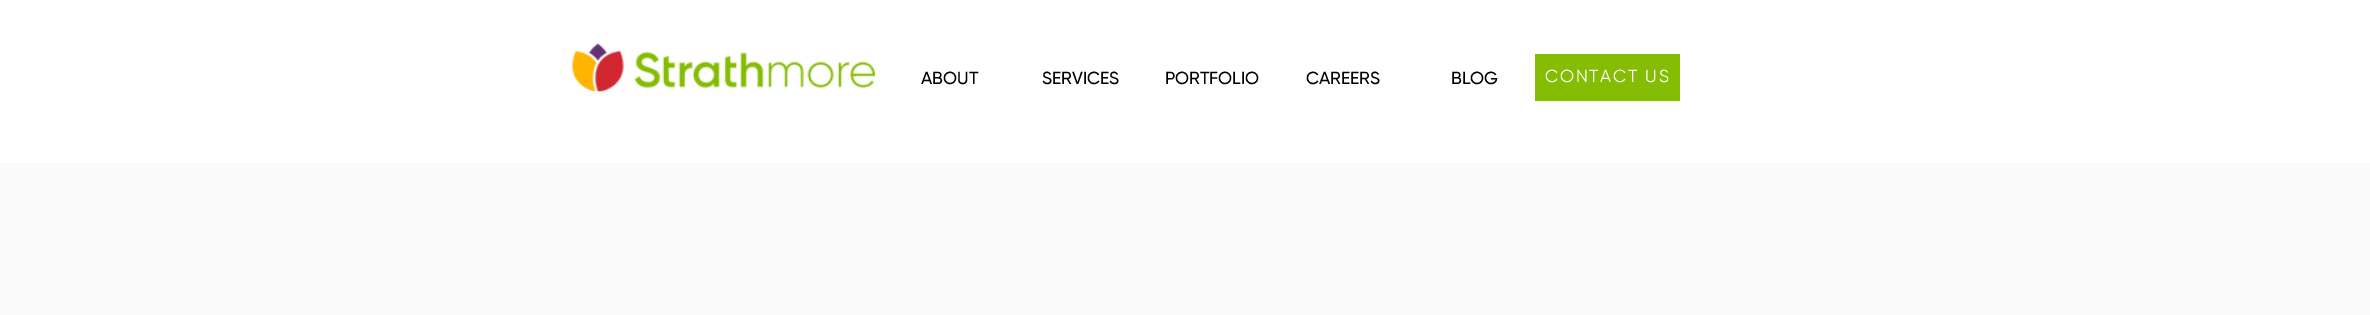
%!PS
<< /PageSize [2370 315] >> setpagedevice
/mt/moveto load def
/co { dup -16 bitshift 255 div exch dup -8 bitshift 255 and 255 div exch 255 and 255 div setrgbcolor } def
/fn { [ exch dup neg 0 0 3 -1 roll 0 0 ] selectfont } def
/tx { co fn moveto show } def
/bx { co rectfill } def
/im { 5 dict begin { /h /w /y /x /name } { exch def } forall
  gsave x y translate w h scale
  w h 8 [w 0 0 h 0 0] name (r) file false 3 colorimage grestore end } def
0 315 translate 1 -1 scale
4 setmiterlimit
0 0 2370 315 16#FFFFFF bx
(media/1.raw) 572 43 303 49 im
1535 54 145 47 16#85BD04 bx
0 163 2370 152 16#FAFAFA bx
(ABOUT) 921 84 /Gilroy-Medium 17.5 16#000000 tx
(SERVICES) 1042 84 /Gilroy-Medium 17.5 16#000000 tx
(PORTFOLIO) 1165 84 /Gilroy-Medium 17.5 16#000000 tx
(CAREERS) 1306 84 /Gilroy-Medium 17.5 16#000000 tx
(BLOG) 1451 84 /Gilroy-Medium 17.5 16#000000 tx
/Gilroy-Regular 17.5 fn
16#FFFFFF co
1545 82 mt 1.75 0 (CONTACT US) ashow
showpage
